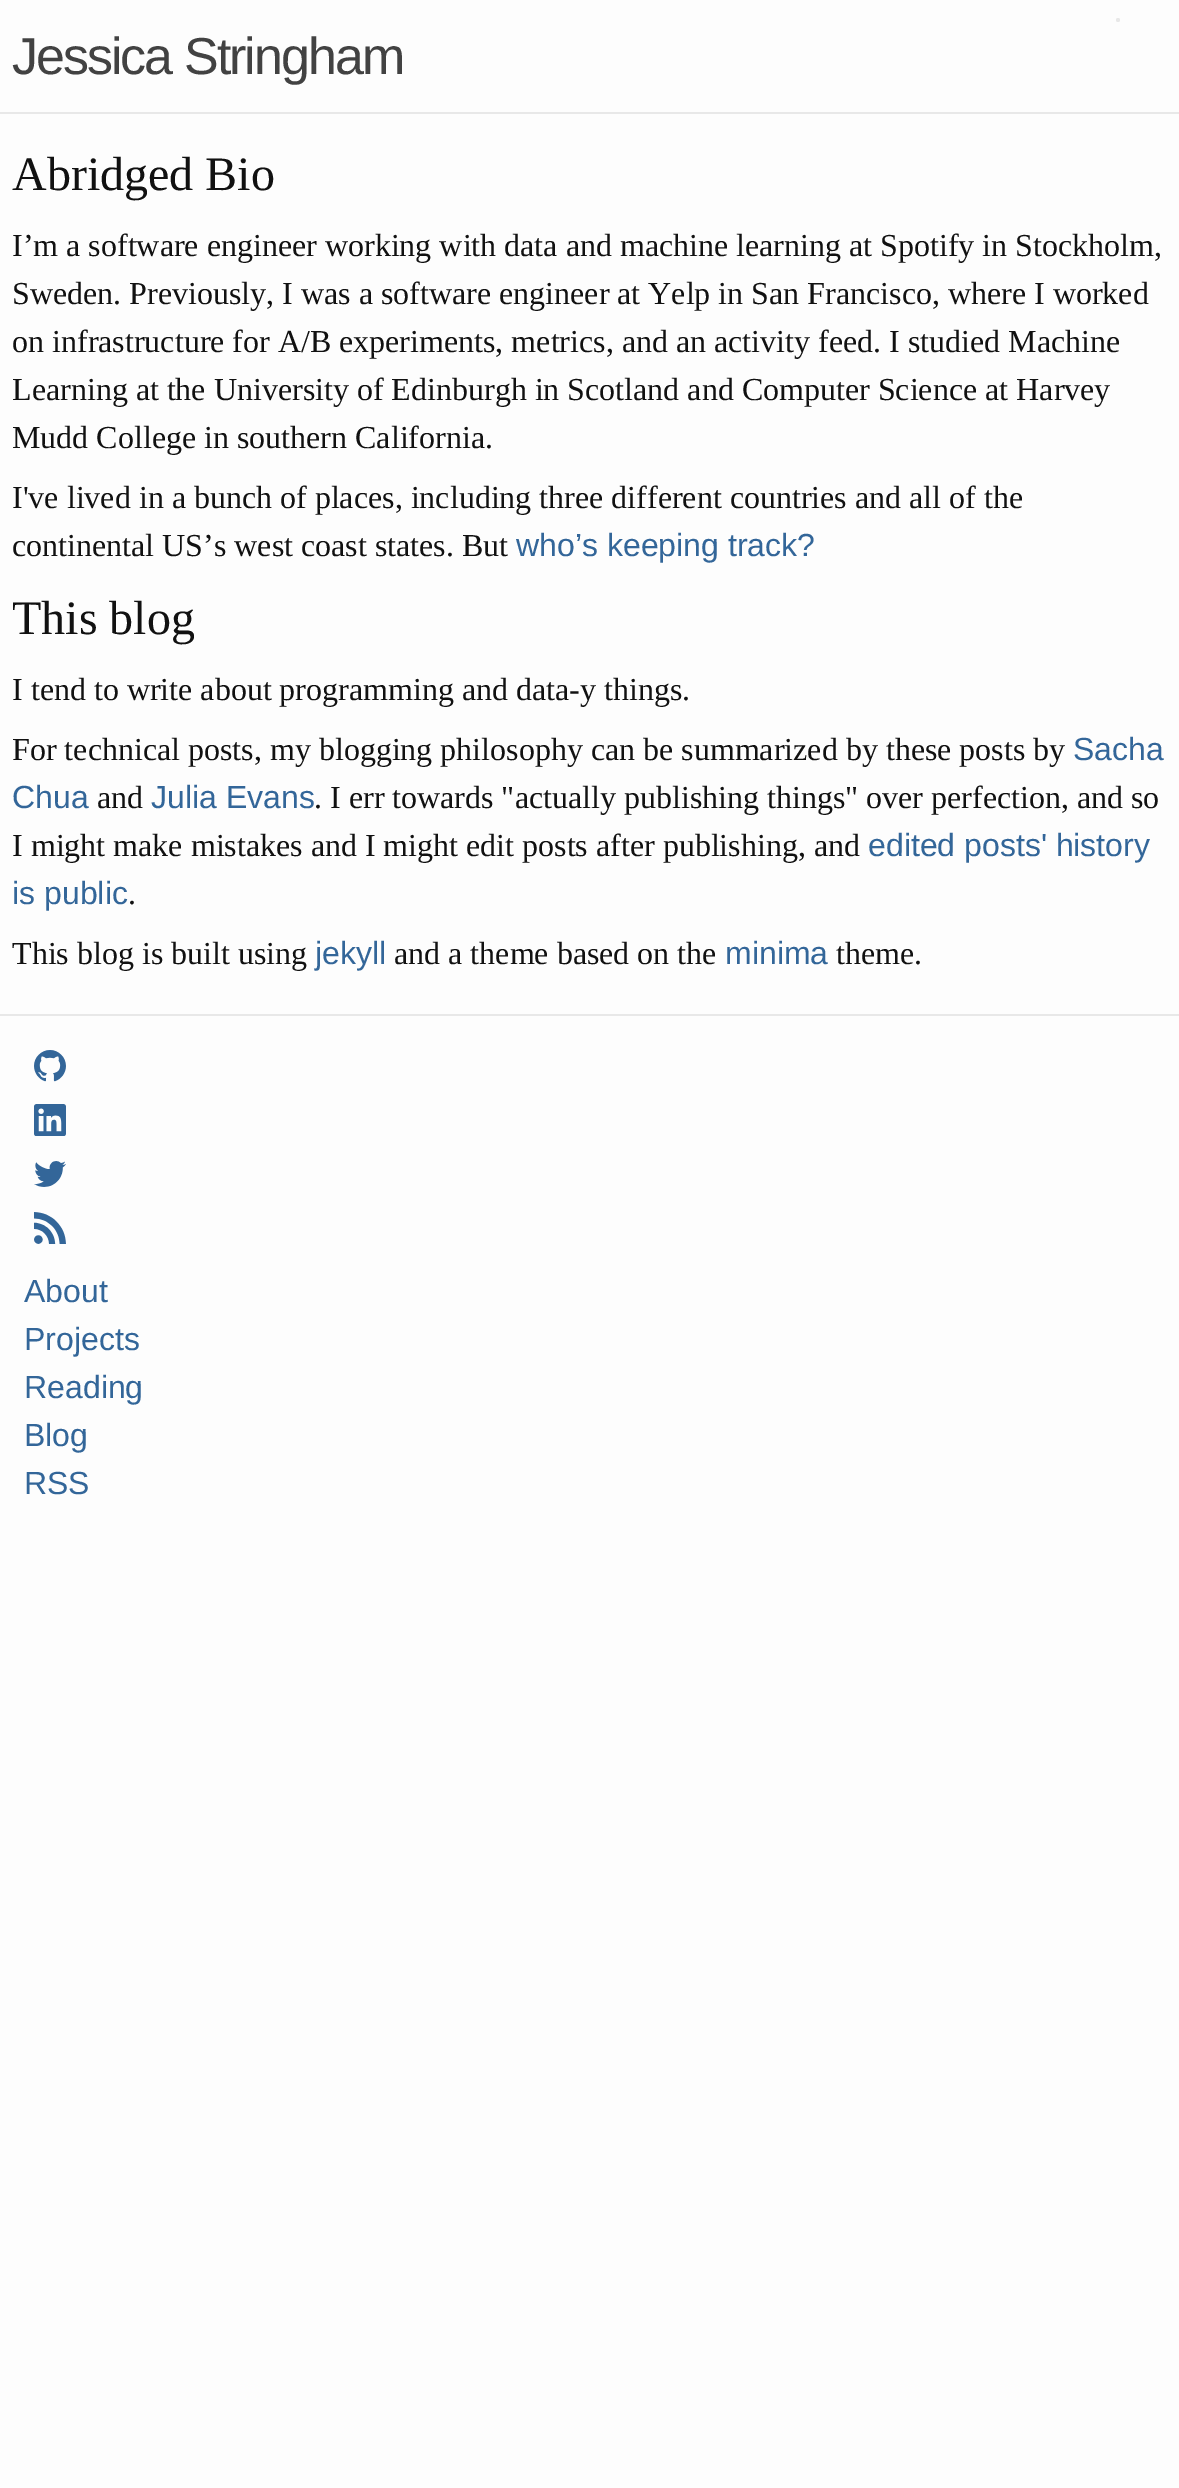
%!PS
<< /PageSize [1179 2488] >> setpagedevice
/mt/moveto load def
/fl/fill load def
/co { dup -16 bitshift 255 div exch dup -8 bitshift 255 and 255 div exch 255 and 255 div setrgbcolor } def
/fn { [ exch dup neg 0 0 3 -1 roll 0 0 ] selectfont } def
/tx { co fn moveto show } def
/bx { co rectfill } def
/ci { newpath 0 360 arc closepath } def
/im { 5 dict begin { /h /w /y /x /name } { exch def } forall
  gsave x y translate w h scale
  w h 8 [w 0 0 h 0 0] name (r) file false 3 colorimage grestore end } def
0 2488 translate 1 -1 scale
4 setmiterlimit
0 0 1179 2488 16#FDFDFD bx
0 112 1179 2 16#E8E8E8 bx
1118 20 2 ci fl
0 1014 1179 2 16#E8E8E8 bx
(media/1.raw) 34 1050 32 32 im
(media/2.raw) 34 1104 32 32 im
(media/3.raw) 34 1161 32 26 im
(media/4.raw) 34 1212 32 32 im
/LiberationSans-Regular 52 fn
16#424242 co
12 74 mt -2 0 (Jessica Stringham) ashow
(Abridged Bio) 12 190 /LiberationSerif-Regular 48 16#111111 tx
(I’m a software engineer working with data and machine learning at Spotify in Stockholm,) 12 256 /LiberationSerif-Regular 32 16#111111 tx
(Sweden. Previously, I was a software engineer at Yelp in San Francisco, where I worked) 12 304 /LiberationSerif-Regular 32 16#111111 tx
(on infrastructure for A/B experiments, metrics, and an activity feed. I studied Machine) 12 352 /LiberationSerif-Regular 32 16#111111 tx
(Learning at the University of Edinburgh in Scotland and Computer Science at Harvey) 12 400 /LiberationSerif-Regular 32 16#111111 tx
(Mudd College in southern California.) 12 448 /LiberationSerif-Regular 32 16#111111 tx
(I've lived in a bunch of places, including three different countries and all of the) 12 508 /LiberationSerif-Regular 32 16#111111 tx
(continental US’s west coast states. But) 12 556 /LiberationSerif-Regular 32 16#111111 tx
(who’s keeping track?) 516 556 /LiberationSans-Regular 32 16#336699 tx
(This blog) 12 634 /LiberationSerif-Regular 48 16#111111 tx
(I tend to write about programming and data-y things.) 12 700 /LiberationSerif-Regular 32 16#111111 tx
(For technical posts, my blogging philosophy can be summarized by these posts by) 12 760 /LiberationSerif-Regular 32 16#111111 tx
(Sacha) 1073 760 /LiberationSans-Regular 32 16#336699 tx
(Chua) 12 808 /LiberationSans-Regular 32 16#336699 tx
(and) 97 808 /LiberationSerif-Regular 32 16#111111 tx
(Julia Evans) 151 808 /LiberationSans-Regular 32 16#336699 tx
(. I err towards "actually publishing things" over perfection, and so) 314 808 /LiberationSerif-Regular 32 16#111111 tx
(I might make mistakes and I might edit posts after publishing, and) 12 856 /LiberationSerif-Regular 32 16#111111 tx
(edited posts' history) 868 856 /LiberationSans-Regular 32 16#336699 tx
(is public) 12 904 /LiberationSans-Regular 32 16#336699 tx
(.) 128 904 /LiberationSerif-Regular 32 16#111111 tx
(This blog is built using) 12 964 /LiberationSerif-Regular 32 16#111111 tx
(jekyll) 315 964 /LiberationSans-Regular 32 16#336699 tx
(and a theme based on the) 394 964 /LiberationSerif-Regular 32 16#111111 tx
(minima) 725 964 /LiberationSans-Regular 32 16#336699 tx
(theme.) 836 964 /LiberationSerif-Regular 32 16#111111 tx
(About) 24 1302 /LiberationSans-Regular 32 16#336699 tx
(Projects) 24 1350 /LiberationSans-Regular 32 16#336699 tx
(Reading) 24 1398 /LiberationSans-Regular 32 16#336699 tx
(Blog) 24 1446 /LiberationSans-Regular 32 16#336699 tx
(RSS) 24 1494 /LiberationSans-Regular 32 16#336699 tx
showpage
